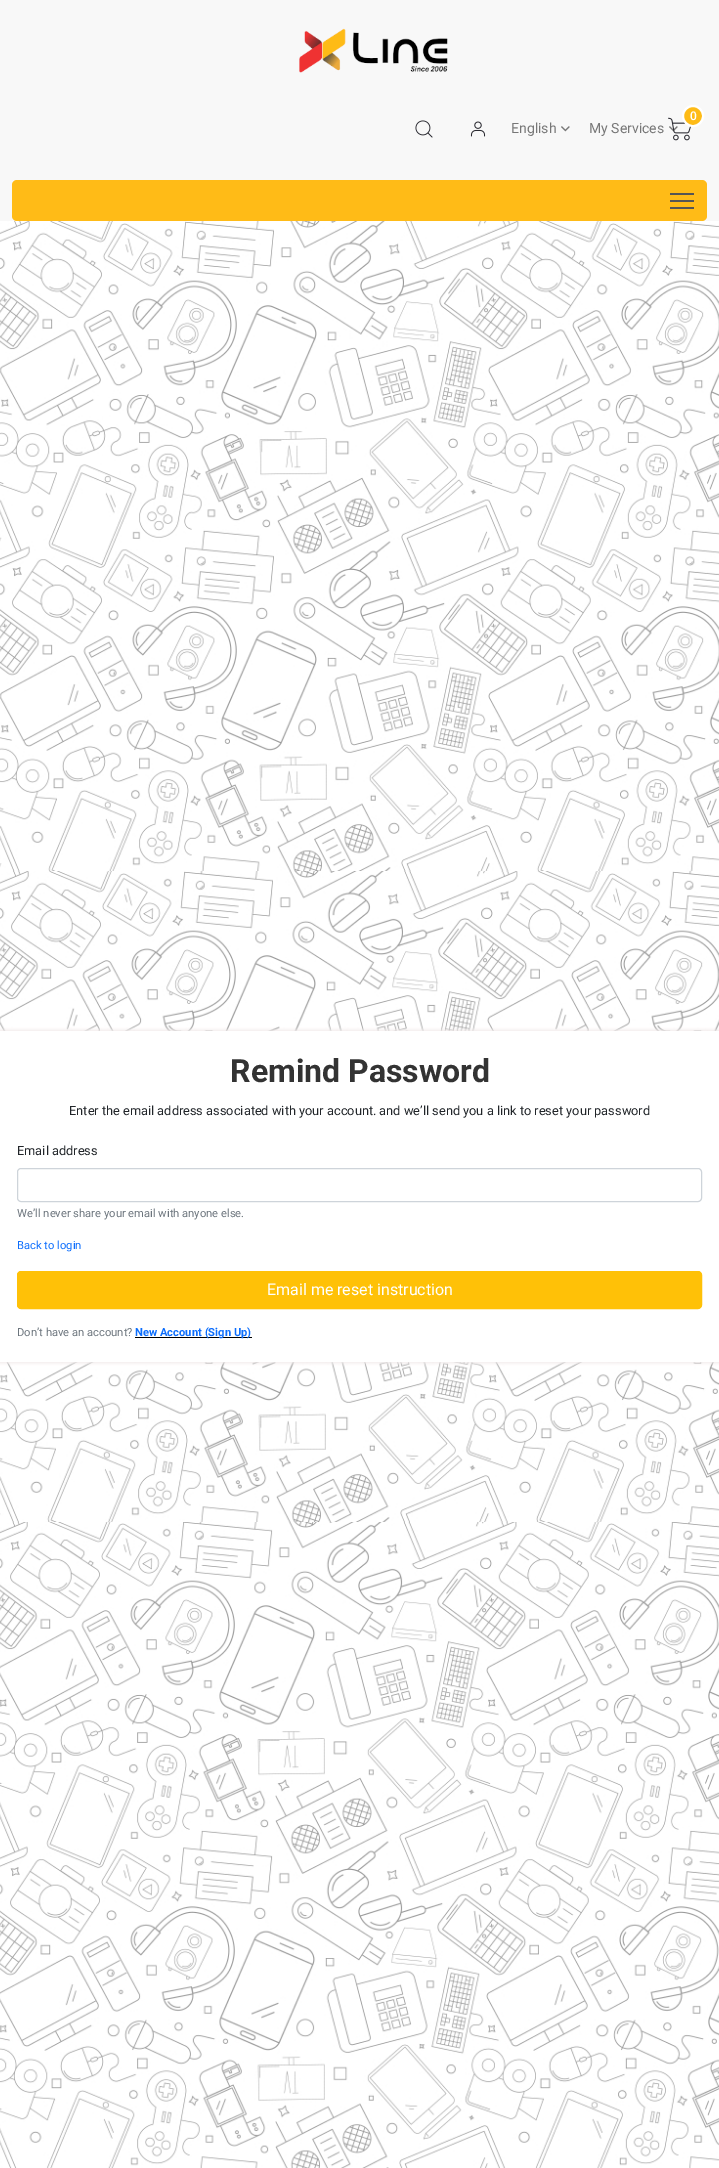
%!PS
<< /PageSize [719 2168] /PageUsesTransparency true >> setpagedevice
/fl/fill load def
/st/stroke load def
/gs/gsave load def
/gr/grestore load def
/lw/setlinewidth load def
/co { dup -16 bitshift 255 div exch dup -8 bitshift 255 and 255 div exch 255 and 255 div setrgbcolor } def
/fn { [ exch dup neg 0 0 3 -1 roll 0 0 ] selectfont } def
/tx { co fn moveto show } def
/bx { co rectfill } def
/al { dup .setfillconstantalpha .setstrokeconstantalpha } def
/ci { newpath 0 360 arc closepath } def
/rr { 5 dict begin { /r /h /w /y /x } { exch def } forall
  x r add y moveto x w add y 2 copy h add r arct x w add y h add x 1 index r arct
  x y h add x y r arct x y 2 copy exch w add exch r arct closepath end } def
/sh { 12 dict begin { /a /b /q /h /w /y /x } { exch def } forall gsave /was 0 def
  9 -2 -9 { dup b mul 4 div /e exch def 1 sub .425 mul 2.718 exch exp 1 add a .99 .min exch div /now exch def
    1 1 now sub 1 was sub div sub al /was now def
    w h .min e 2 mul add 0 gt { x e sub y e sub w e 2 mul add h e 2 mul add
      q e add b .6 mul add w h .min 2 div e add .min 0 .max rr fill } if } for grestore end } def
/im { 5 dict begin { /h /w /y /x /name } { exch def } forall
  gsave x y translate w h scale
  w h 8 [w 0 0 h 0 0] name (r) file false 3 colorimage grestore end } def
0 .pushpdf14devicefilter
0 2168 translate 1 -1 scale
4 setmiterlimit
0 0 719 2168 16#F8F8F8 bx
(media/1.raw) 299 28 149 45 im
(media/5.raw) 669 126 9 6 im
(media/2.raw) 668 117 24 24 im
16#FEBB16 co
693 116 10 ci gs fl gr
16#FFFFFF co
2 lw
st
(media/3.raw) 415 120 18 18 im
(media/4.raw) 470 121 16 16 im
(media/5.raw) 561 126 9 6 im
16#FFBB17 co
12 180 695 41 5 rr fl
670 200 24 2 16#555555 bx
670 193 24 2 16#555555 bx
670 207 24 2 16#555555 bx
(media/6.raw) 0 221 719 1947 im
16#F0EAEA co
-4 1030 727 333 0 1.5 1 sh
0 1031 719 331 16#FFFFFF bx
16#CED4DA co
1 lw
17.5 1168.5 684 33 3.5 rr st
16#FFC107 co
17.5 1271.5 684 37 3.5 rr gs fl gr
st
135 1337 117 1 16#000000 bx
(0) 690 120 /Roboto-Medium 12 16#FFFFFF tx
(English) 511 133 /Roboto-Regular 14 16#777777 tx
(My Services) 589 133 /Roboto-Regular 14 16#777777 tx
(Remind Password) 230 1082 /Roboto-Bold 32 16#333333 tx
(Enter the email address associated with your account. and we’ll send you a link to reset your password) 69 1115 /Roboto-Regular 12.8 16#212529 tx
(Email address) 17 1155 /Roboto-Regular 12.8 16#212529 tx
(We’ll never share your email with anyone else.) 17 1217 /Roboto-Regular 11.2 16#6C757D tx
(Back to login) 17 1249 /Roboto-Regular 11.2 16#0D6EFD tx
(Email me reset instruction) 267 1295 /Roboto-Regular 16 16#FFFFFF tx
(Don’t have an account?) 17 1336 /Roboto-Regular 11.2 16#6C757D tx
(New Account \(Sign Up\)) 135 1336 /Roboto-Bold 11.2 16#0D6EFD tx
.poppdf14devicefilter showpage
